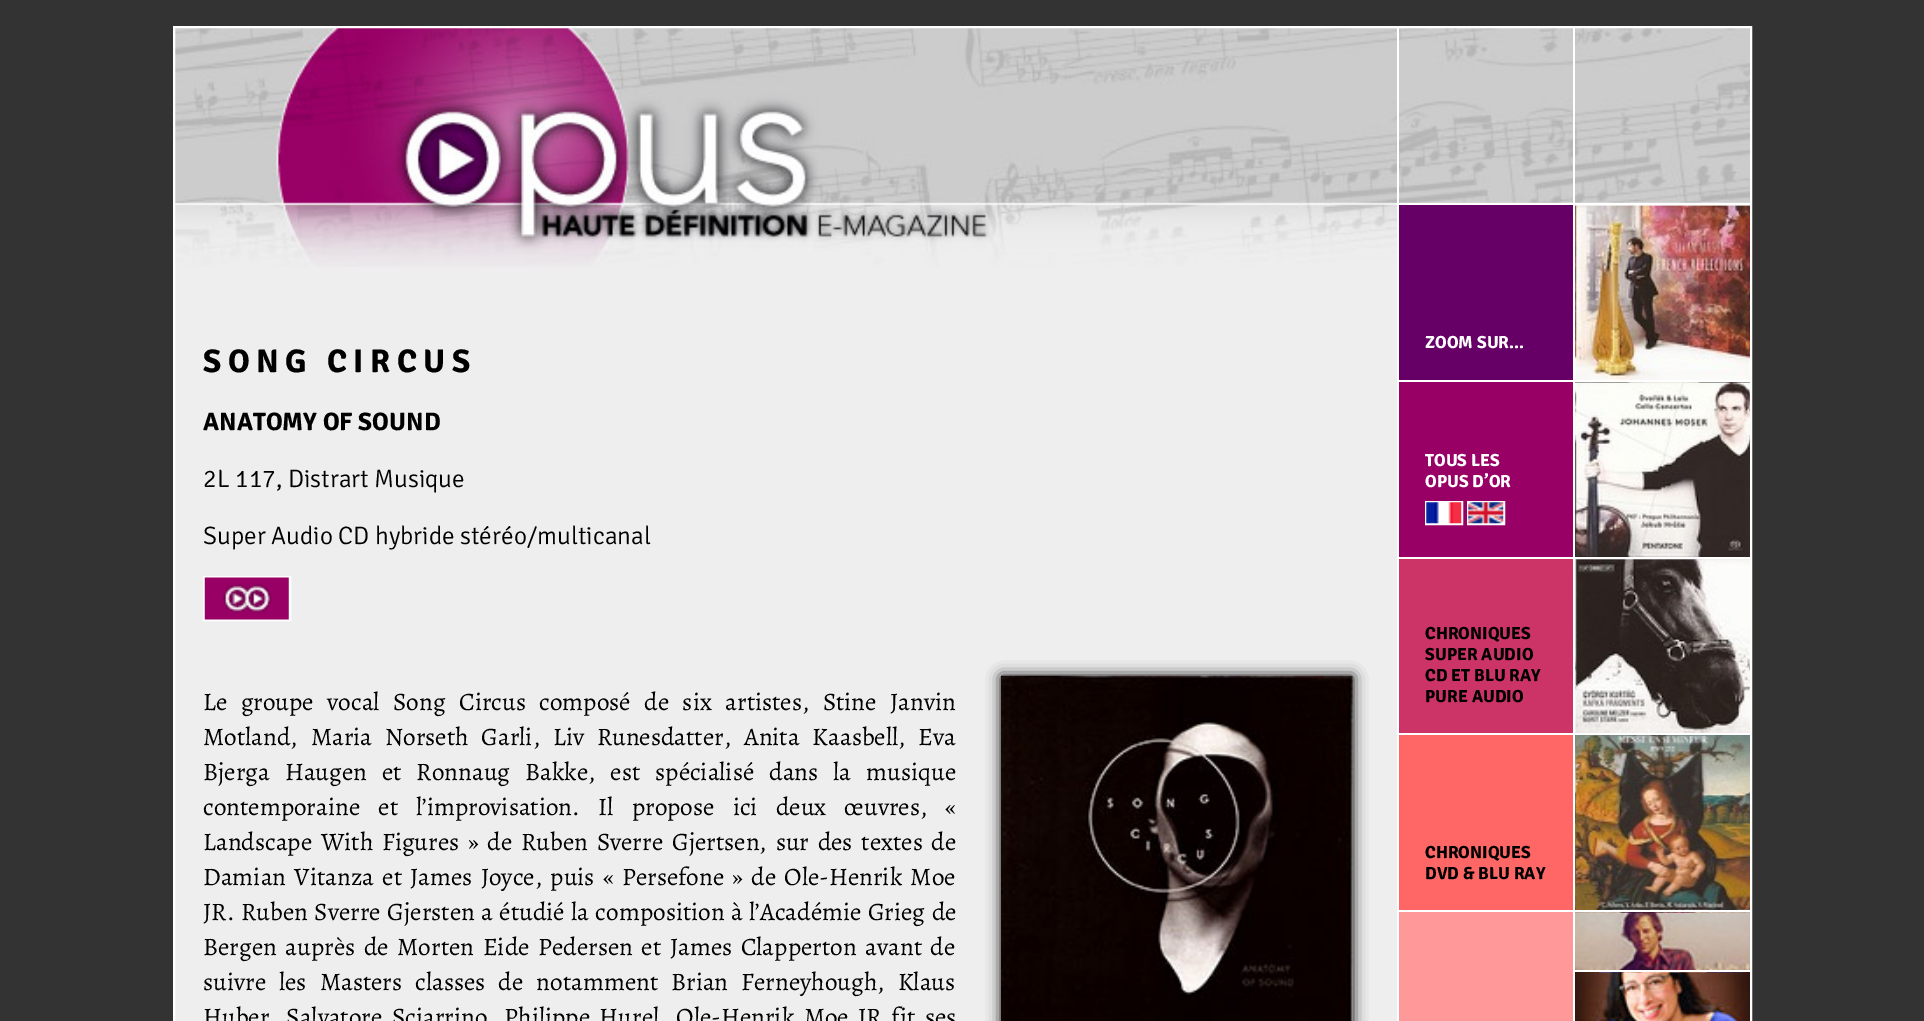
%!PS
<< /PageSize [1924 1021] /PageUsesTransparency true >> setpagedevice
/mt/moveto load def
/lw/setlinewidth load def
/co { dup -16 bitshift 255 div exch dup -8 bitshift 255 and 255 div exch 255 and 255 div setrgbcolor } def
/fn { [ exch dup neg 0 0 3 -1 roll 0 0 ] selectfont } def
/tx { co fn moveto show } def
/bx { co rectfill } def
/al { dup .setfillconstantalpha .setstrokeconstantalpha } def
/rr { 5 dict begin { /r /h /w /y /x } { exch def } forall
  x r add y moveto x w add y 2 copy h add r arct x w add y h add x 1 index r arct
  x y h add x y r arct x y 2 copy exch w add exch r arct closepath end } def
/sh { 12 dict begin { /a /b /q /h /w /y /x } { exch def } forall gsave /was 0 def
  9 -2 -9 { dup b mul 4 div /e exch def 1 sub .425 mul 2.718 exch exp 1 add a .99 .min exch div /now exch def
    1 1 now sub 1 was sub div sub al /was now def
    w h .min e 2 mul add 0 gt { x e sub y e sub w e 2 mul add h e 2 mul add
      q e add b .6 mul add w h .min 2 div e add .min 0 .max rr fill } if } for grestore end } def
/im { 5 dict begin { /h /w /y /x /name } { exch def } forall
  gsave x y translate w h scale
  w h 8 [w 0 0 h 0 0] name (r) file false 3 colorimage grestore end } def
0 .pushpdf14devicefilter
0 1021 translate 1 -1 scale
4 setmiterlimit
0 0 1924 1021 16#333333 bx
175 267 1222 754 16#EEEEEE bx
(media/1.raw) 175 28 1575 239 im
16#FFFFFF co
2 lw
174 27 1577 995 rectstroke
204 577 86 43 rectstroke
(media/2.raw) 204 577 85 43 im
16#000000 co
1001 676 352 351 0 7 1 sh
(media/3.raw) 1001 675 352 346 im
1573 970 2 51 16#FFFFFF bx
1573 970 179 2 16#FFFFFF bx
1573 910 2 61 16#FFFFFF bx
1573 910 179 2 16#FFFFFF bx
1573 733 2 179 16#FFFFFF bx
1573 733 179 2 16#FFFFFF bx
1573 557 2 178 16#FFFFFF bx
1573 557 179 2 16#FFFFFF bx
1573 380 2 178 16#FFFFFF bx
1573 380 179 2 16#FFFFFF bx
1573 203 2 179 16#FFFFFF bx
1573 203 179 2 16#FFFFFF bx
1573 28 2 177 16#FFFFFF bx
1397 910 2 111 16#FFFFFF bx
1397 910 178 2 16#FFFFFF bx
1397 733 2 179 16#FFFFFF bx
1397 733 178 2 16#FFFFFF bx
1397 557 2 178 16#FFFFFF bx
1397 557 178 2 16#FFFFFF bx
1397 380 2 178 16#FFFFFF bx
1397 380 178 2 16#FFFFFF bx
1397 203 2 179 16#FFFFFF bx
1397 203 178 2 16#FFFFFF bx
1397 28 2 177 16#FFFFFF bx
1399 205 174 175 16#660066 bx
(media/4.raw) 1575 205 175 175 im
1399 382 174 175 16#990066 bx
16#FFFFFF co
1426 502 36 22 rectstroke
1468 502 36 22 rectstroke
(media/5.raw) 1426 502 36 22 im
(media/6.raw) 1468 502 36 22 im
(media/7.raw) 1575 382 175 175 im
1399 559 174 174 16#CC3366 bx
(media/8.raw) 1575 559 175 174 im
1399 735 174 175 16#FF6666 bx
(media/9.raw) 1575 735 175 175 im
1399 912 174 109 16#FF9999 bx
(media/10.raw) 1575 912 175 58 im
(media/11.raw) 1575 972 175 49 im
/Signika-Bold 32.75 fn
16#000000 co
203 372 mt 6.5 0 (SONG CIRCUS) ashow
(ANATOMY OF SOUND) 203 430 /Signika-Bold 25.2 16#000000 tx
(2L 117, Distrart Musique) 203 487 /Signika-Light 25.2 16#000000 tx
(Super Audio CD hybride stéréo/multicanal) 203 544 /Signika-Light 25.2 16#000000 tx
/Alegreya-Regular 25.2 fn
203 710 mt 8.5 0 32 (Le groupe vocal Song Circus composé de six artistes, Stine Janvin) widthshow
203 745 mt 7.75 0 32 (Motland, Maria Norseth Garli, Liv Runesdatter, Anita Kaasbell, Eva) widthshow
203 780 mt 10 0 32 (Bjerga Haugen et Ronnaug Bakke, est spécialisé dans la musique) widthshow
203 815 mt 13.25 0 32 (contemporaine et l’improvisation. Il propose ici deux œuvres, «) widthshow
203 850 mt 3.75 0 32 (Landscape With Figures » de Ruben Sverre Gjertsen, sur des textes de) widthshow
203 885 mt 3.25 0 32 (Damian Vitanza et James Joyce, puis « Persefone » de Ole-Henrik Moe) widthshow
203 920 mt 1.5 0 32 (JR. Ruben Sverre Gjersten a étudié la composition à l’Académie Grieg de) widthshow
203 955 mt 3.6 0 32 (Bergen auprès de Morten Eide Pedersen et James Clapperton avant de) widthshow
203 990 mt 8 0 32 (suivre les Masters classes de notamment Brian Ferneyhough, Klaus) widthshow
203 1025 mt 4.5 0 32 (Huber, Salvatore Sciarrino, Philippe Hurel. Ole-Henrik Moe JR fit ses) widthshow
(ZOOM SUR…) 1425 348 /Signika-Bold 17.5 16#FFFFFF tx
(TOUS LES) 1425 466 /Signika-Bold 17.5 16#FFFFFF tx
(OPUS D’OR) 1425 487 /Signika-Bold 17.5 16#FFFFFF tx
(CHRONIQUES) 1425 639 /Signika-Bold 17.5 16#000000 tx
(SUPER AUDIO) 1425 660 /Signika-Bold 17.5 16#000000 tx
(CD ET BLU RAY) 1425 681 /Signika-Bold 17.5 16#000000 tx
(PURE AUDIO) 1425 702 /Signika-Bold 17.5 16#000000 tx
(CHRONIQUES) 1425 858 /Signika-Bold 17.5 16#000000 tx
(DVD & BLU RAY) 1425 879 /Signika-Bold 17.5 16#000000 tx
.poppdf14devicefilter showpage
